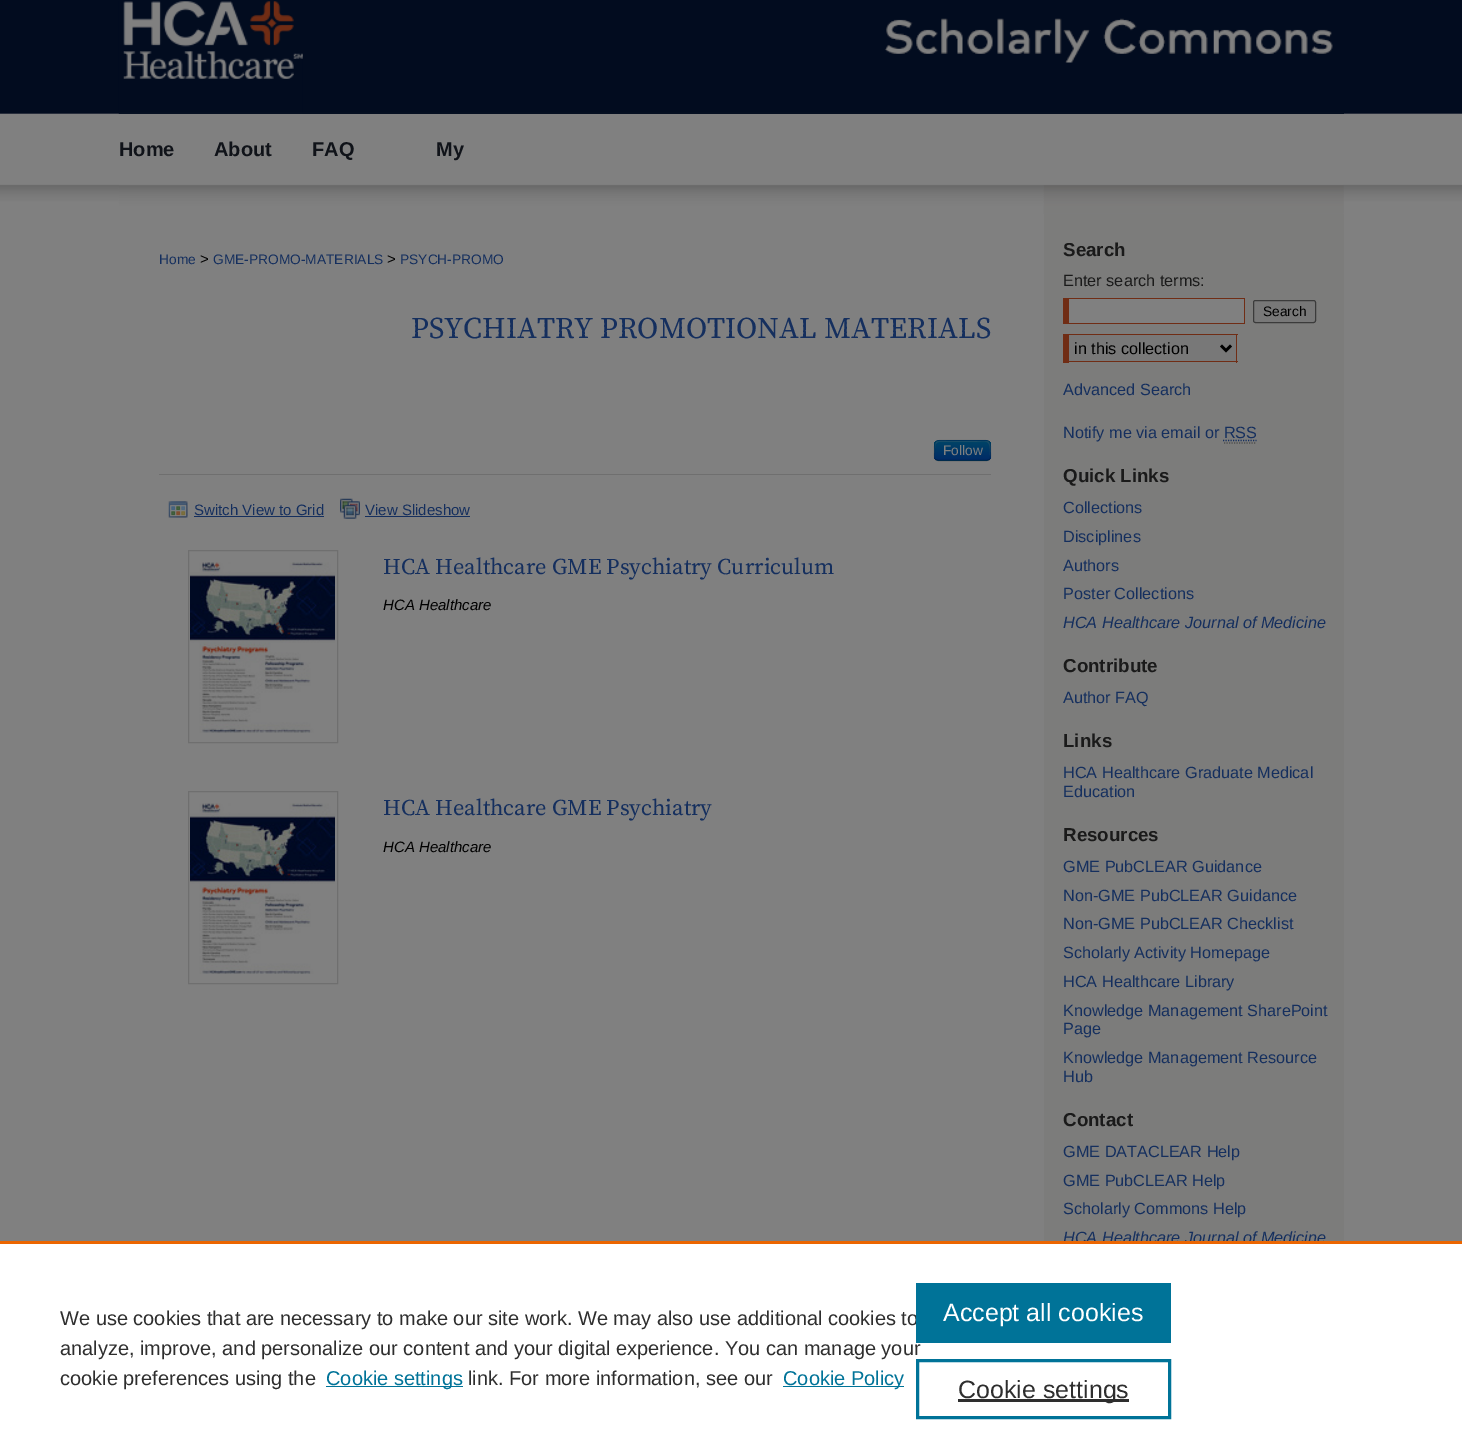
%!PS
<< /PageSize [1462 1453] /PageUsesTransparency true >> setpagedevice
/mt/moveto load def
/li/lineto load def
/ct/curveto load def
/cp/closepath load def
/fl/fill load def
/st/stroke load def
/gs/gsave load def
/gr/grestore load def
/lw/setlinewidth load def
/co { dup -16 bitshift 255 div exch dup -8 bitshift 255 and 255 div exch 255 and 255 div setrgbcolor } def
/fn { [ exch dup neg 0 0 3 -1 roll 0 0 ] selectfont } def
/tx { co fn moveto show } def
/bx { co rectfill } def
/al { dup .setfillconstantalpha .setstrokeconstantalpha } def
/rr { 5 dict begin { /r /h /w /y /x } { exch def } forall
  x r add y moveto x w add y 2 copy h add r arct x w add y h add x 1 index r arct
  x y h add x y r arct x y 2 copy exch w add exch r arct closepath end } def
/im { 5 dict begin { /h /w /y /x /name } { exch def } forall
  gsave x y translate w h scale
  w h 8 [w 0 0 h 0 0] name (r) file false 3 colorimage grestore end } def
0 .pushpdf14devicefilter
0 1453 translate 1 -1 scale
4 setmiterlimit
0 0 1462 1453 16#808080 bx
(media/1.raw) 0 0 1462 202 im
(media/4.raw) 118 113 1226 101 im
119 113 1225 1 16#020C1F bx
(media/2.raw) 118 1 1226 113 im
(media/3.raw) 118 53 185 61 im
1044 214 300 1027 16#7C7C7B bx
159 474 832 1 16#6F6F6F bx
16#003A66 co
934 440 57 21 5 rr fl
gs
934 440 57 21 5 rr clip newpath
gs 934 441 mt 991 441 li 991 460 li 934 460 li cp clip newpath
<< /ShadingType 2 /ColorSpace /DeviceRGB /Coords [963 441 963 460] /Extend [true true] /Function << /FunctionType 2 /Domain [0 1] /C0 [0 .267 .4] /C1 [0 .169 .4] /N 1 >> >> shfill gr
gr
0.2 al
16#808080 co
939 442 mt 970 442 li 988 442 990 437 990 456 ct 990 452 992 442 987 441 ct 947 441 li 937 441 935 439 935 449 ct 935 458 li 935 454 933 442 939 442 ct cp fl
0.25 al
16#000000 co
1.2 lw
989.5 459.5 mt 988.5 460 987.5 460.5 986 460.5 ct 939 460.5 li 937.5 460.5 936.5 460 935.5 459.5 ct st
0.1 al
935.5 459.5 mt 933.5 457 934.5 453.5 934.5 450.5 ct 934.5 439.5 935 440.5 946.5 440.5 ct 978.5 440.5 li 990 440.5 990.5 439.5 990.5 450.5 ct 990.5 453.5 991.5 457 989.5 459.5 ct st
1 al
(media/5.raw) 168 501 20 17 im
194 516 130 1 16#152F5E bx
(media/6.raw) 340 498 20 21 im
365 516 105 1 16#152F5E bx
16#6F6F6F co
1 lw
188.5 550.5 149 192 rectstroke
(media/7.raw) 190 562 145 171 im
188.5 791.5 149 192 rectstroke
(media/8.raw) 190 803 145 171 im
1069 299 175 24 16#808080 bx
1063 298 182 1 16#702D15 bx
1244 298 1 26 16#702D15 bx
1063 323 182 1 16#702D15 bx
1063 298 6 26 16#702D15 bx
16#787878 co
1253.5 300.5 62 22 2 rr gs fl gr
16#3B3B3B co
st
1069 335 167 26 16#787878 bx
1063 334 175 1 16#702D15 bx
1236 334 1 29 16#702D15 bx
1063 361 175 1 16#702D15 bx
1063 334 6 29 16#702D15 bx
16#000000 co
2.5 lw
1221 345.5 mt 1226 350.5 li 1231 345.5 li st
16#152F5E co
1.2 lw
[1.25 1.25] 0 setdash
1223 440.5 mt 1256.5 440.5 li st
16#4D4D4D co
1224 443 mt 1256 443 li st
0 1244 1462 209 16#FFFFFF bx
326 1386 137 1 16#007398 bx
783 1386 121 1 16#007398 bx
(Home) 119 156 /LiberationSans-Bold 20 16#101319 tx
(About) 214 156 /LiberationSans-Bold 20 16#101319 tx
(FAQ) 312 156 /LiberationSans-Bold 20 16#101319 tx
(My) 436 156 /LiberationSans-Bold 20 16#101319 tx
(Home) 159 264 /LiberationSans-Regular 13.75 16#152F5E tx
(>) 200 264 /LiberationSans-Regular 15 16#000000 tx
(GME-PROMO-MATERIALS) 213 264 /LiberationSans-Regular 13.75 16#152F5E tx
(>) 387 264 /LiberationSans-Regular 15 16#000000 tx
(PSYCH-PROMO) 400 264 /LiberationSans-Regular 13.75 16#152F5E tx
(PSYCHIATRY PROMOTIONAL MATERIALS) 411 338 /SourceSerifPro-Regular 30 16#152F5E tx
(Follow) 943 455 /LiberationSans-Regular 13.75 16#808080 tx
(Switch View to Grid) 194 515 /LiberationSans-Regular 15 16#152F5E tx
(View Slideshow) 365 515 /LiberationSans-Regular 15 16#152F5E tx
(HCA Healthcare GME Psychiatry Curriculum) 383 574 /SourceSerifPro-Regular 22.5 16#152F5E tx
(HCA Healthcare) 383 610 /LiberationSans-Italic 15 16#000000 tx
(HCA Healthcare GME Psychiatry) 383 815 /SourceSerifPro-Regular 22.5 16#152F5E tx
(HCA Healthcare) 383 852 /LiberationSans-Italic 15 16#000000 tx
(Search) 1063 256 /LiberationSans-Bold 18.75 16#1A1A1A tx
(Enter search terms:) 1063 286 /LiberationSans-Regular 16.25 16#1A1A1A tx
(Search) 1263 316 /LiberationSans-Regular 13.75 16#000000 tx
(in this collection) 1074 354 /LiberationSans-Regular 16.25 16#000000 tx
(Advanced Search) 1063 395 /LiberationSans-Regular 16.25 16#152F5E tx
(Notify me via email or RSS) 1063 438 /LiberationSans-Regular 16.25 16#152F5E tx
(Quick Links) 1063 482 /LiberationSans-Bold 18.75 16#1A1A1A tx
(Collections) 1063 513 /LiberationSans-Regular 16.25 16#152F5E tx
(Disciplines) 1063 542 /LiberationSans-Regular 16.25 16#152F5E tx
(Authors) 1063 571 /LiberationSans-Regular 16.25 16#152F5E tx
(Poster Collections) 1063 599 /LiberationSans-Regular 16.25 16#152F5E tx
(HCA Healthcare Journal of Medicine) 1063 628 /LiberationSans-Italic 16.25 16#152F5E tx
(Contribute) 1063 672 /LiberationSans-Bold 18.75 16#1A1A1A tx
(Author FAQ) 1063 703 /LiberationSans-Regular 16.25 16#152F5E tx
(Links) 1063 747 /LiberationSans-Bold 18.75 16#1A1A1A tx
(HCA Healthcare Graduate Medical) 1063 778 /LiberationSans-Regular 16.25 16#152F5E tx
(Education) 1063 797 /LiberationSans-Regular 16.25 16#152F5E tx
(Resources) 1063 841 /LiberationSans-Bold 18.75 16#1A1A1A tx
(GME PubCLEAR Guidance) 1063 872 /LiberationSans-Regular 16.25 16#152F5E tx
(Non-GME PubCLEAR Guidance) 1063 901 /LiberationSans-Regular 16.25 16#152F5E tx
(Non-GME PubCLEAR Checklist) 1063 929 /LiberationSans-Regular 16.25 16#152F5E tx
(Scholarly Activity Homepage) 1063 958 /LiberationSans-Regular 16.25 16#152F5E tx
(HCA Healthcare Library) 1063 987 /LiberationSans-Regular 16.25 16#152F5E tx
(Knowledge Management SharePoint) 1063 1016 /LiberationSans-Regular 16.25 16#152F5E tx
(Page) 1063 1034 /LiberationSans-Regular 16.25 16#152F5E tx
(Knowledge Management Resource) 1063 1063 /LiberationSans-Regular 16.25 16#152F5E tx
(Hub) 1063 1082 /LiberationSans-Regular 16.25 16#152F5E tx
(Contact) 1063 1126 /LiberationSans-Bold 18.75 16#1A1A1A tx
(GME DATACLEAR Help) 1063 1157 /LiberationSans-Regular 16.25 16#152F5E tx
(GME PubCLEAR Help) 1063 1186 /LiberationSans-Regular 16.25 16#152F5E tx
(Scholarly Commons Help) 1063 1214 /LiberationSans-Regular 16.25 16#152F5E tx
(HCA Healthcare Journal of Medicine) 1063 1243 /LiberationSans-Italic 16.25 16#152F5E tx
0 1241 1462 3 16#EB6500 bx
(We use cookies that are necessary to make our site work. We may also use additional cookies to) 60 1325 /LiberationSans-Regular 20 16#2E2E2E tx
(analyze, improve, and personalize our content and your digital experience. You can manage your) 60 1355 /LiberationSans-Regular 20 16#2E2E2E tx
(cookie preferences using the) 60 1385 /LiberationSans-Regular 20 16#2E2E2E tx
(Cookie settings) 326 1385 /LiberationSans-Regular 20 16#007398 tx
(link. For more information, see our) 468 1385 /LiberationSans-Regular 20 16#2E2E2E tx
(Cookie Policy) 783 1385 /LiberationSans-Regular 20 16#007398 tx
916 1283 255 60 16#007398 bx
(Accept all cookies) 943 1321 /LiberationSans-Regular 25 16#FFFFFF tx
16#007398 co
3 lw
[] 0 setdash
917.5 1360.5 252 57 rectstroke
958 1399 171 3 16#2E2E2E bx
(Cookie settings) 958 1398 /LiberationSans-Regular 25 16#2E2E2E tx
.poppdf14devicefilter showpage
